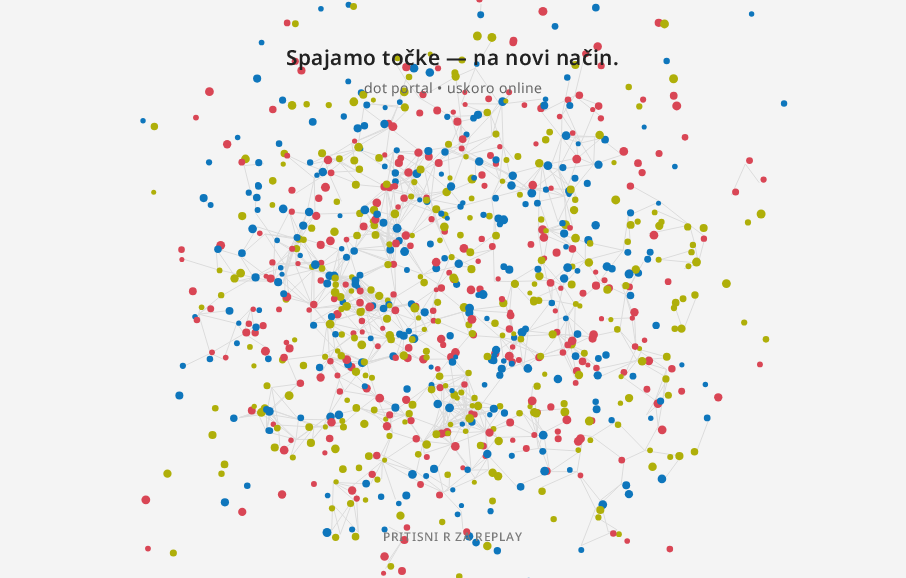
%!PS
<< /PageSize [906 578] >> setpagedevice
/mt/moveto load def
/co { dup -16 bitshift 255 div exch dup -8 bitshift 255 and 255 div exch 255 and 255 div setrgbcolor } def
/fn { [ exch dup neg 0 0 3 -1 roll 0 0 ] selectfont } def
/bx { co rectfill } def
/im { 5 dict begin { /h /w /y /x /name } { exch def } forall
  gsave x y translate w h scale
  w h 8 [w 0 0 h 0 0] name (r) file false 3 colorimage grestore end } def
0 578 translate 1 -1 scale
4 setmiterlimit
0 0 906 578 16#F4F4F4 bx
(media/1.raw) 140 0 648 578 im
/NotoSans-SemiBold 20.8 fn
16#222222 co
286 65 mt .4 0 (Spajamo točke — na novi način.) ashow
/NotoSans-Regular 14 fn
16#666666 co
364 93 mt .4 0 (dot portal • uskoro online) ashow
/NotoSans-Medium 12 fn
16#7A7A7A co
383 541 mt .75 0 (PRITISNI R ZA REPLAY) ashow
showpage
